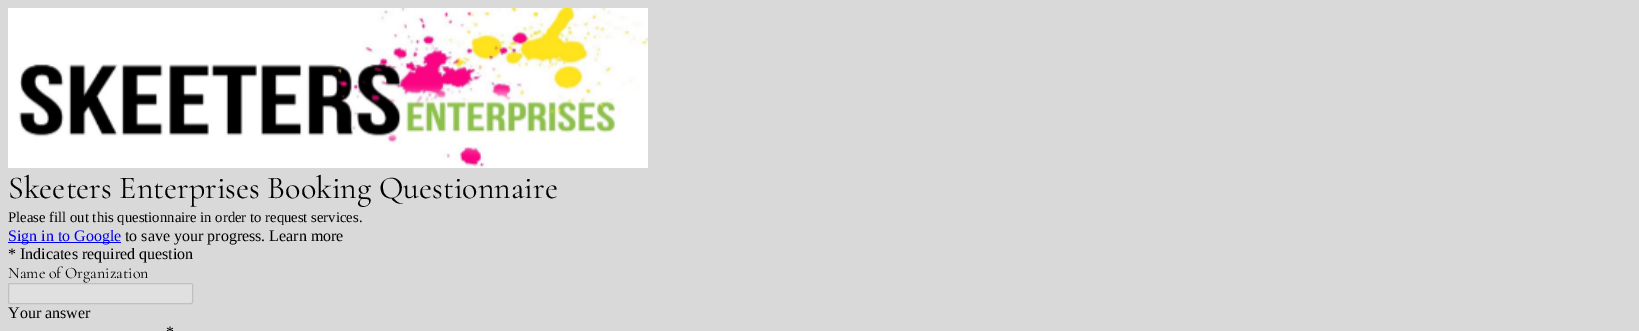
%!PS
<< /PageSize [1639 331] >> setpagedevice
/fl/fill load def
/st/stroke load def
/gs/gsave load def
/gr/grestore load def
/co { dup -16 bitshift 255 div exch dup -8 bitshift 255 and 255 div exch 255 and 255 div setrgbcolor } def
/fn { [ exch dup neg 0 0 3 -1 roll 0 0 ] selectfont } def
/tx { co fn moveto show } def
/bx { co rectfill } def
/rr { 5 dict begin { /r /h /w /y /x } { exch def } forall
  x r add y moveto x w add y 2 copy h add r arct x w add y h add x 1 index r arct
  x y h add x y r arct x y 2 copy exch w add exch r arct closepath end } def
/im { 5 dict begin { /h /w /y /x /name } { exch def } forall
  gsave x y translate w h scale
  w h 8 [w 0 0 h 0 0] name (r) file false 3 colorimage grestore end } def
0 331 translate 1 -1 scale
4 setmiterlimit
0 0 1639 331 16#D9D9DA bx
(media/1.raw) 8 8 640 160 im
8 242 113 1 16#0000EE bx
16#E0E0E0 co
8.5 283.5 184 20 1.5 rr gs fl gr
16#C0C0C0 co
st
(Skeeters Enterprises Booking Questionnaire) 8 198 /CormorantGaramond-Regular 32 16#000000 tx
(Please fill out this questionnaire in order to request services.) 8 222 /LiberationSerif-Regular 14.7 16#000000 tx
(Sign in to Google) 8 241 /LiberationSerif-Regular 16 16#0000EE tx
(to save your progress. Learn more) 125 241 /LiberationSerif-Regular 16 16#000000 tx
(* Indicates required question) 8 259 /LiberationSerif-Regular 16 16#000000 tx
(Name of Organization) 8 278 /CormorantGaramond-Regular 16 16#000000 tx
(Your answer) 8 318 /LiberationSerif-Regular 16 16#000000 tx
(*) 166 337 /LiberationSerif-Regular 16 16#000000 tx
showpage
